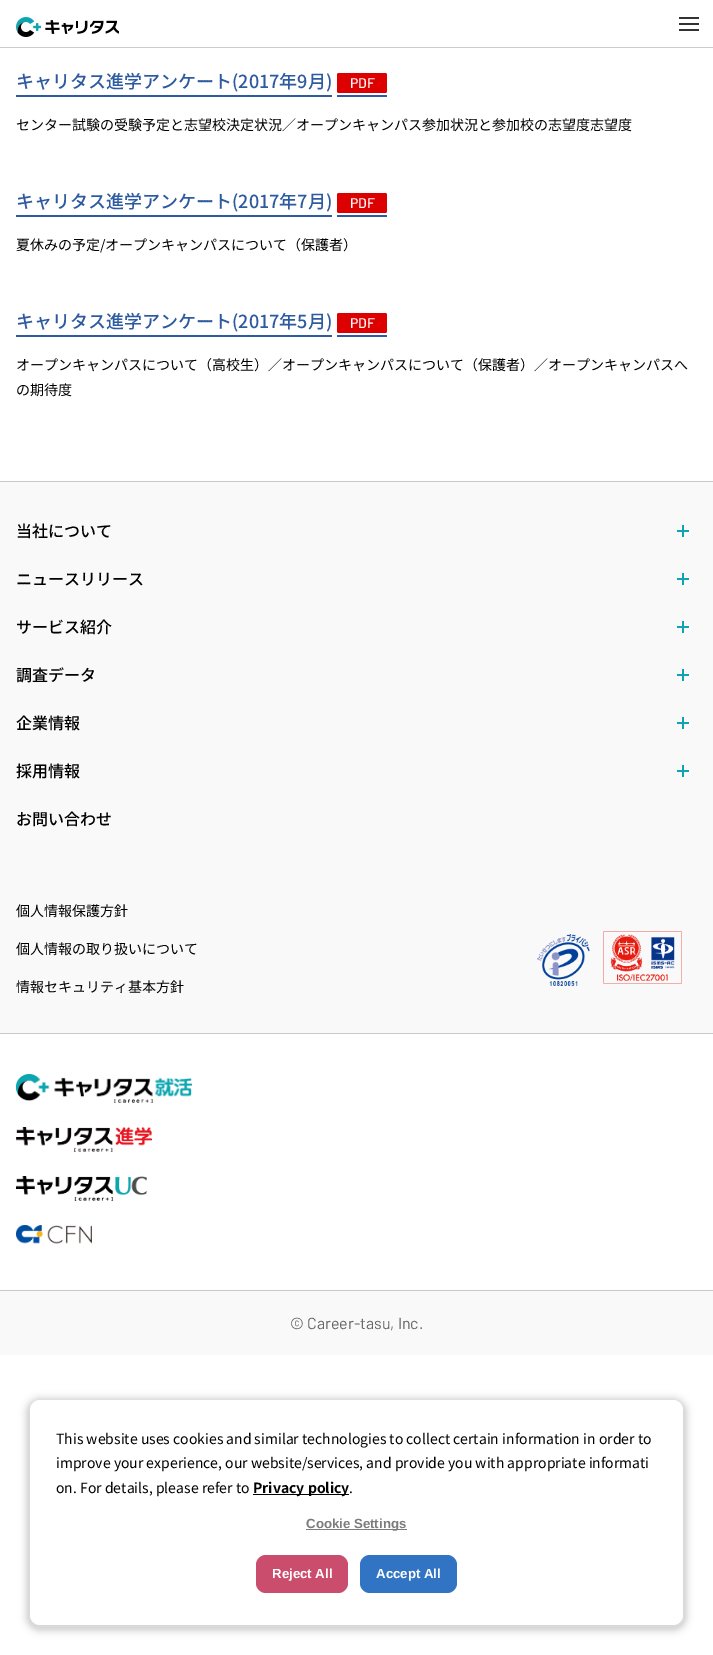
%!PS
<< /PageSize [713 1655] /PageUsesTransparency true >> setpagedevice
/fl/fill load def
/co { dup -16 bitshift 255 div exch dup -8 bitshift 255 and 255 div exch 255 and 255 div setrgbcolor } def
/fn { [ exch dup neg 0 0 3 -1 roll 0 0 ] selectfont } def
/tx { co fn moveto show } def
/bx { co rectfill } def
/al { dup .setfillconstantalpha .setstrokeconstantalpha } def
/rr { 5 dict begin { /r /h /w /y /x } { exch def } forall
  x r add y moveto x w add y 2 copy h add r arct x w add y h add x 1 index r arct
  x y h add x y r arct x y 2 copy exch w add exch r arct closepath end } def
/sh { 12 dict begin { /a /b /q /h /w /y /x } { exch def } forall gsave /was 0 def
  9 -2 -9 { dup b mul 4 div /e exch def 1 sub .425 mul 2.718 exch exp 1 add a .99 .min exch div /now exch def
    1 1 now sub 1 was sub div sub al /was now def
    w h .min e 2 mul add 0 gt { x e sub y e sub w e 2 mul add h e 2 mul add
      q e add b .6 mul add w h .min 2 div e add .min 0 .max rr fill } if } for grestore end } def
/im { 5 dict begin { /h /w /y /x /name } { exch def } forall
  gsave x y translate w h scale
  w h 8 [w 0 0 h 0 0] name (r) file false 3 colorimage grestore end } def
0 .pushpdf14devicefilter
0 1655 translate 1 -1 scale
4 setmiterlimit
0 0 713 1655 16#FFFFFF bx
0 47 713 1 16#CCCCCC bx
(media/1.raw) 16 17 103 20 im
679 23 20 2 16#333333 bx
679 17 20 2 16#333333 bx
679 29 20 2 16#333333 bx
16 95 316 2 16#2E5AA0 bx
337 95 50 2 16#2E5AA0 bx
16#DD0000 co
337 73 50 20 2 rr fl
16 215 316 2 16#2E5AA0 bx
337 215 50 2 16#2E5AA0 bx
16#DD0000 co
337 193 50 20 2 rr fl
16 335 316 2 16#2E5AA0 bx
337 335 50 2 16#2E5AA0 bx
16#DD0000 co
337 313 50 20 2 rr fl
0 482 713 551 16#F9F9F9 bx
0 481 713 1 16#C9C9C9 bx
0 1033 713 1 16#C9C9C9 bx
677 530 12 2 16#0CA5B0 bx
682 525 2 12 16#0CA5B0 bx
677 578 12 2 16#0CA5B0 bx
682 573 2 12 16#0CA5B0 bx
677 626 12 2 16#0CA5B0 bx
682 621 2 12 16#0CA5B0 bx
677 674 12 2 16#0CA5B0 bx
682 669 2 12 16#0CA5B0 bx
677 722 12 2 16#0CA5B0 bx
682 717 2 12 16#0CA5B0 bx
677 770 12 2 16#0CA5B0 bx
682 765 2 12 16#0CA5B0 bx
(media/2.raw) 537 934 53 52 im
(media/3.raw) 603 931 79 53 im
0 1290 713 1 16#C9C9C9 bx
(media/4.raw) 16 1074 176 29 im
(media/5.raw) 16 1127 136 25 im
(media/6.raw) 16 1176 131 25 im
(media/7.raw) 16 1225 76 19 im
0 1291 713 64 16#F9F9F9 bx
16#000000 co
27 1399 659 231 13 1.5 .05 sh
24 1396 665 237 16 3 .1 sh
16#FFFFFF co
30 1400 653 225 10 rr fl
253 1494 96 1 16#000000 bx
306 1529 101 1 16#7C7C7C bx
16#CB4D6E co
256 1555 92 38 10 rr fl
16#3174C3 co
360 1555 97 38 10 rr fl
(キャリタス進学アンケート\(2017年9月\)) 16 88 /NotoSansJP-Medium 18 16#2E5AA0 tx
(PDF) 350 88 /Barlow-Medium 14 16#FFFFFF tx
(センター試験の受験予定と志望校決定状況／オープンキャンパス参加状況と参加校の志望度志望度) 16 130 /NotoSansJP-Regular 14 16#000000 tx
(キャリタス進学アンケート\(2017年7月\)) 16 208 /NotoSansJP-Medium 18 16#2E5AA0 tx
(PDF) 350 208 /Barlow-Medium 14 16#FFFFFF tx
(夏休みの予定/オープンキャンパスについて（保護者）) 16 250 /NotoSansJP-Regular 14 16#000000 tx
(キャリタス進学アンケート\(2017年5月\)) 16 328 /NotoSansJP-Medium 18 16#2E5AA0 tx
(PDF) 350 328 /Barlow-Medium 14 16#FFFFFF tx
(オープンキャンパスについて（高校生）／オープンキャンパスについて（保護者）／オープンキャンパスへ) 16 370 /NotoSansJP-Regular 14 16#000000 tx
(の期待度) 16 395 /NotoSansJP-Regular 14 16#000000 tx
(当社について) 16 537 /NotoSansJP-Medium 16 16#000000 tx
(ニュースリリース) 16 585 /NotoSansJP-Medium 16 16#000000 tx
(サービス紹介) 16 633 /NotoSansJP-Medium 16 16#000000 tx
(調査データ) 16 681 /NotoSansJP-Medium 16 16#000000 tx
(企業情報) 16 729 /NotoSansJP-Medium 16 16#000000 tx
(採用情報) 16 777 /NotoSansJP-Medium 16 16#000000 tx
(お問い合わせ) 16 825 /NotoSansJP-Medium 16 16#000000 tx
(個人情報保護方針) 16 916 /NotoSansJP-Regular 14 16#000000 tx
(個人情報の取り扱いについて) 16 954 /NotoSansJP-Regular 14 16#000000 tx
(情報セキュリティ基本方針) 16 992 /NotoSansJP-Regular 14 16#000000 tx
(© Career-tasu, Inc.) 290 1329 /Barlow-Regular 16 16#666666 tx
(This website uses cookies and similar technologies to collect certain information in order to) 56 1444 /NotoSansJP-Regular 14 16#000000 tx
(improve your experience, our website/services, and provide you with appropriate informati) 56 1468 /NotoSansJP-Regular 14 16#000000 tx
(on. For details, please refer to) 56 1493 /NotoSansJP-Regular 14 16#000000 tx
(Privacy policy) 253 1493 /NotoSansJP-Bold 14 16#000000 tx
(.) 349 1493 /NotoSansJP-Regular 14 16#000000 tx
(Cookie Settings) 306 1528 /LiberationSans-Bold 13.25 16#7C7C7C tx
(Reject All) 272 1578 /LiberationSans-Bold 13.25 16#FFFFFF tx
(Accept All) 376 1578 /LiberationSans-Bold 13.25 16#FFFFFF tx
.poppdf14devicefilter showpage
